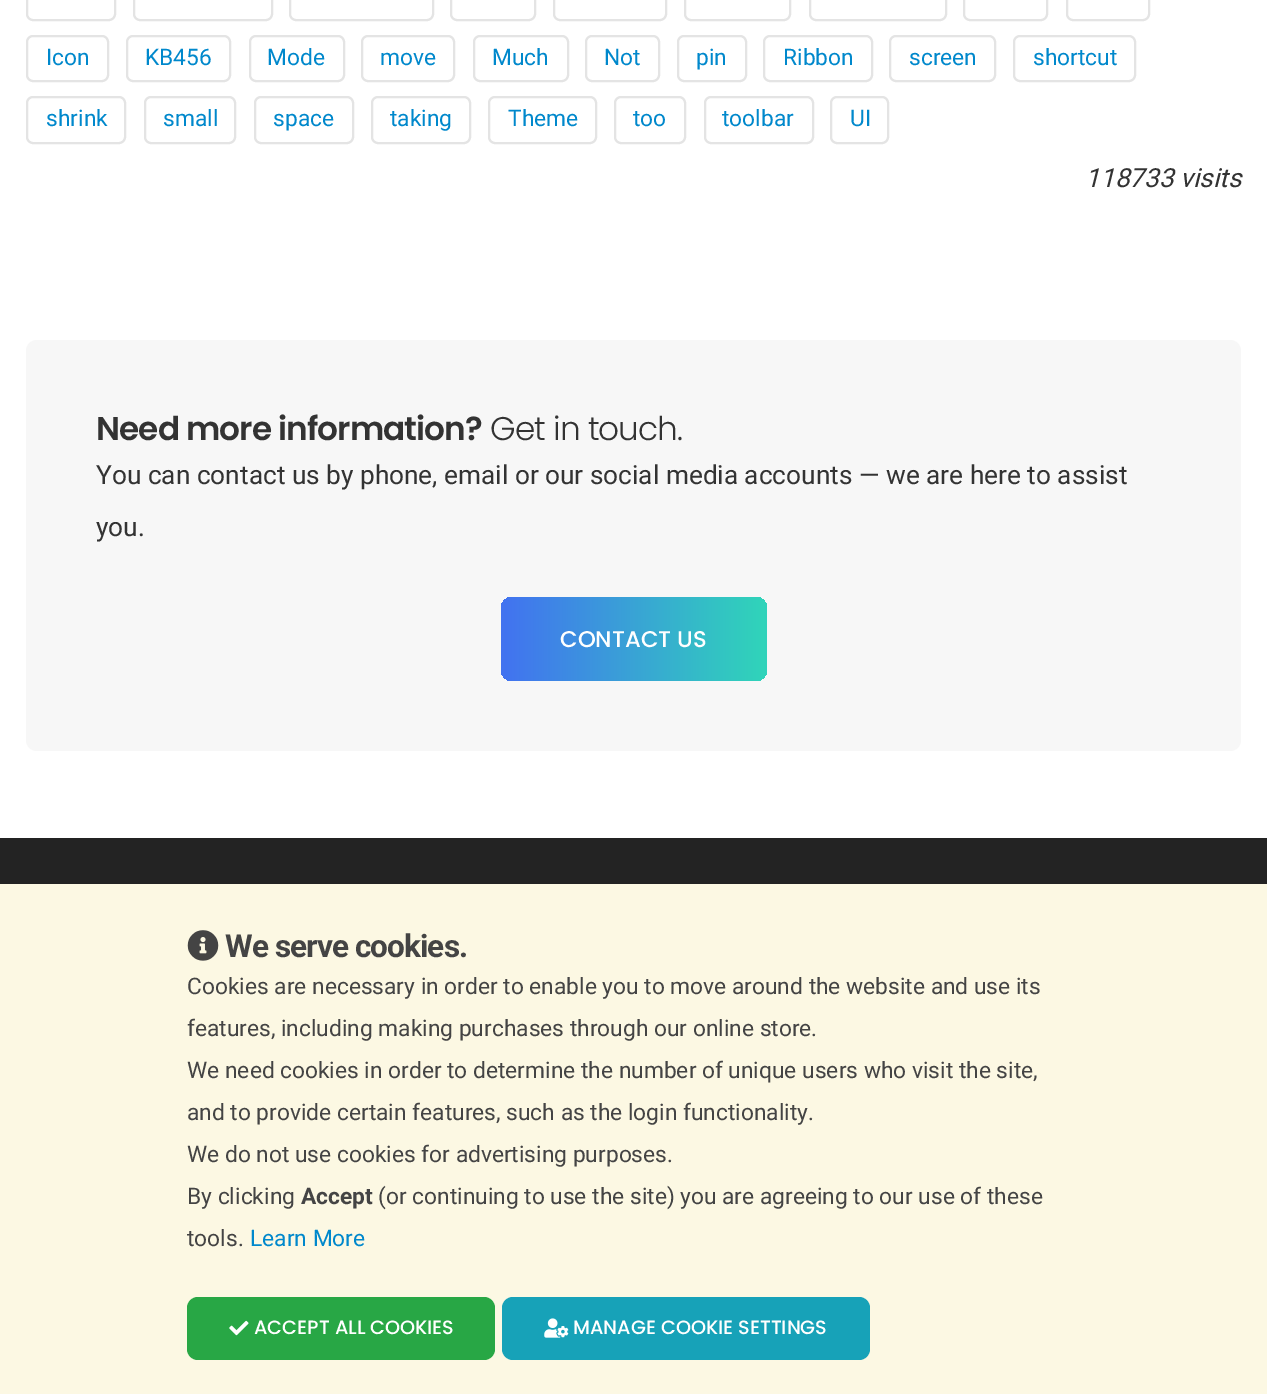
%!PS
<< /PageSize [1267 1394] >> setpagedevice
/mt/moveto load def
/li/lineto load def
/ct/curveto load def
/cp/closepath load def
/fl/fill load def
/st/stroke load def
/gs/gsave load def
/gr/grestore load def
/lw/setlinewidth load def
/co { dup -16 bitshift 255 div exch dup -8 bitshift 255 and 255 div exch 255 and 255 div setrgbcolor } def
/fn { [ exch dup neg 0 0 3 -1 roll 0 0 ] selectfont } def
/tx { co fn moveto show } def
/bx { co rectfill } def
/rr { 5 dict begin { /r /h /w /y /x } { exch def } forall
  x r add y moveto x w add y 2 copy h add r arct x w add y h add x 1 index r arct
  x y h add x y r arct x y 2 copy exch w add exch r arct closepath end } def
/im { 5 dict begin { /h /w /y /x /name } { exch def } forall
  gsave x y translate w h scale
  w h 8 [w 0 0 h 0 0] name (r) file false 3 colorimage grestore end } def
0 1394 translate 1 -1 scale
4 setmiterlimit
0 0 1267 1394 16#FFFFFF bx
16#E4E4E4 co
2 lw
27 -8 88 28 6 rr st
134 -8 138 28 6 rr st
290 -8 143 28 6 rr st
451 -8 84 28 6 rr st
554 -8 112 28 6 rr st
685 -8 105 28 6 rr st
810 -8 136 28 6 rr st
964 -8 83 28 6 rr st
1067 -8 82 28 6 rr st
27 36 81 45 6 rr st
127 36 103 45 6 rr st
250 36 94 45 6 rr st
362 36 92 45 6 rr st
474 36 94 45 6 rr st
586 36 73 45 6 rr st
678 36 68 45 6 rr st
764 36 108 45 6 rr st
890 36 105 45 6 rr st
1014 36 121 45 6 rr st
27 97 98 46 6 rr st
145 97 90 46 6 rr st
255 97 98 46 6 rr st
372 97 98 46 6 rr st
489 97 107 46 6 rr st
615 97 70 46 6 rr st
705 97 108 46 6 rr st
831 97 57 46 6 rr st
16#F7F7F7 co
26 340 1215 411 11 rr fl
gs
501 597 266 84 11 rr clip newpath
gs 501 597 mt 504 597 li 504 681 li 501 681 li cp clip newpath
<< /ShadingType 2 /ColorSpace /DeviceRGB /Coords [-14 639 504 639] /Extend [true true] /Function << /FunctionType 3 /Domain [0 1] /Functions [<< /FunctionType 2 /Domain [0 1] /C0 [.259 .451 .941] /C1 [.188 .831 .729] /N 1 >> << /FunctionType 2 /Domain [0 1] /C0 [.188 .831 .729] /C1 [.259 .451 .941] /N 1 >>] /Bounds [.5] /Encode [0 1 0 1] >> >> shfill gr
gs 504 597 mt 756 597 li 762 597 767 602 767 608 ct 767 670 li 767 676 762 681 756 681 ct 504 681 li cp clip newpath
<< /ShadingType 2 /ColorSpace /DeviceRGB /Coords [504 639 1022 639] /Extend [true true] /Function << /FunctionType 3 /Domain [0 1] /Functions [<< /FunctionType 2 /Domain [0 1] /C0 [.259 .451 .941] /C1 [.188 .831 .729] /N 1 >> << /FunctionType 2 /Domain [0 1] /C0 [.188 .831 .729] /C1 [.259 .451 .941] /N 1 >>] /Bounds [.5] /Encode [0 1 0 1] >> >> shfill gr
gr
0 838 1267 46 16#232323 bx
0 884 1267 510 16#FCF8E3 bx
(media/1.raw) 187 930 32 31 im
16#28A745 co
187 1297 308 63 11 rr fl
(media/2.raw) 229 1320 20 16 im
16#17A2B8 co
502 1297 368 63 11 rr fl
(media/3.raw) 544 1318 25 20 im
(Icon) 46 65 /Roboto-Regular 22.75 16#0088CC tx
(KB456) 145 65 /Roboto-Regular 22.75 16#0088CC tx
(Mode) 267 65 /Roboto-Regular 22.75 16#0088CC tx
(move) 380 65 /Roboto-Regular 22.75 16#0088CC tx
(Much) 492 65 /Roboto-Regular 22.75 16#0088CC tx
(Not) 604 65 /Roboto-Regular 22.75 16#0088CC tx
(pin) 696 65 /Roboto-Regular 22.75 16#0088CC tx
(Ribbon) 783 65 /Roboto-Regular 22.75 16#0088CC tx
(screen) 909 65 /Roboto-Regular 22.75 16#0088CC tx
(shortcut) 1033 65 /Roboto-Regular 22.75 16#0088CC tx
(shrink) 46 126 /Roboto-Regular 22.75 16#0088CC tx
(small) 163 126 /Roboto-Regular 22.75 16#0088CC tx
(space) 273 126 /Roboto-Regular 22.75 16#0088CC tx
(taking) 390 126 /Roboto-Regular 22.75 16#0088CC tx
(Theme) 508 126 /Roboto-Regular 22.75 16#0088CC tx
(too) 633 126 /Roboto-Regular 22.75 16#0088CC tx
(toolbar) 722 126 /Roboto-Regular 22.75 16#0088CC tx
(UI) 850 126 /Roboto-Regular 22.75 16#0088CC tx
(118733 visits) 1085 187 /Roboto-Italic 26.25 16#333333 tx
/Poppins-SemiBold 32.75 fn
96 440 mt -.9 0 (Need more information?) ashow
/Poppins-Light 32.75 fn
490 440 mt -.9 0 (Get in touch.) ashow
(You can contact us by phone, email or our social media accounts — we are here to assist) 96 484 /Roboto-Regular 26.25 16#333333 tx
(you.) 96 536 /Roboto-Regular 26.25 16#333333 tx
(CONTACT US) 560 647 /Poppins-Medium 22.75 16#FFFFFF tx
/Roboto-Bold 31.5 fn
16#444444 co
225 957 mt -.9 0 (We serve cookies.) ashow
(Cookies are necessary in order to enable you to move around the website and use its) 187 994 /Roboto-Regular 22.75 16#444444 tx
(features, including making purchases through our online store.) 187 1036 /Roboto-Regular 22.75 16#444444 tx
(We need cookies in order to determine the number of unique users who visit the site,) 187 1078 /Roboto-Regular 22.75 16#444444 tx
(and to provide certain features, such as the login functionality.) 187 1120 /Roboto-Regular 22.75 16#444444 tx
(We do not use cookies for advertising purposes.) 187 1162 /Roboto-Regular 22.75 16#444444 tx
(By clicking) 187 1204 /Roboto-Regular 22.75 16#444444 tx
(Accept) 301 1204 /Roboto-Bold 22.75 16#444444 tx
(\(or continuing to use the site\) you are agreeing to our use of these) 378 1204 /Roboto-Regular 22.75 16#444444 tx
(tools.) 187 1246 /Roboto-Regular 22.75 16#444444 tx
(Learn More) 250 1246 /Roboto-Regular 22.75 16#0088CC tx
(ACCEPT ALL COOKIES) 254 1334 /Poppins-Medium 19.25 16#FFFFFF tx
(MANAGE COOKIE SETTINGS) 573 1334 /Poppins-Medium 19.25 16#FFFFFF tx
showpage
